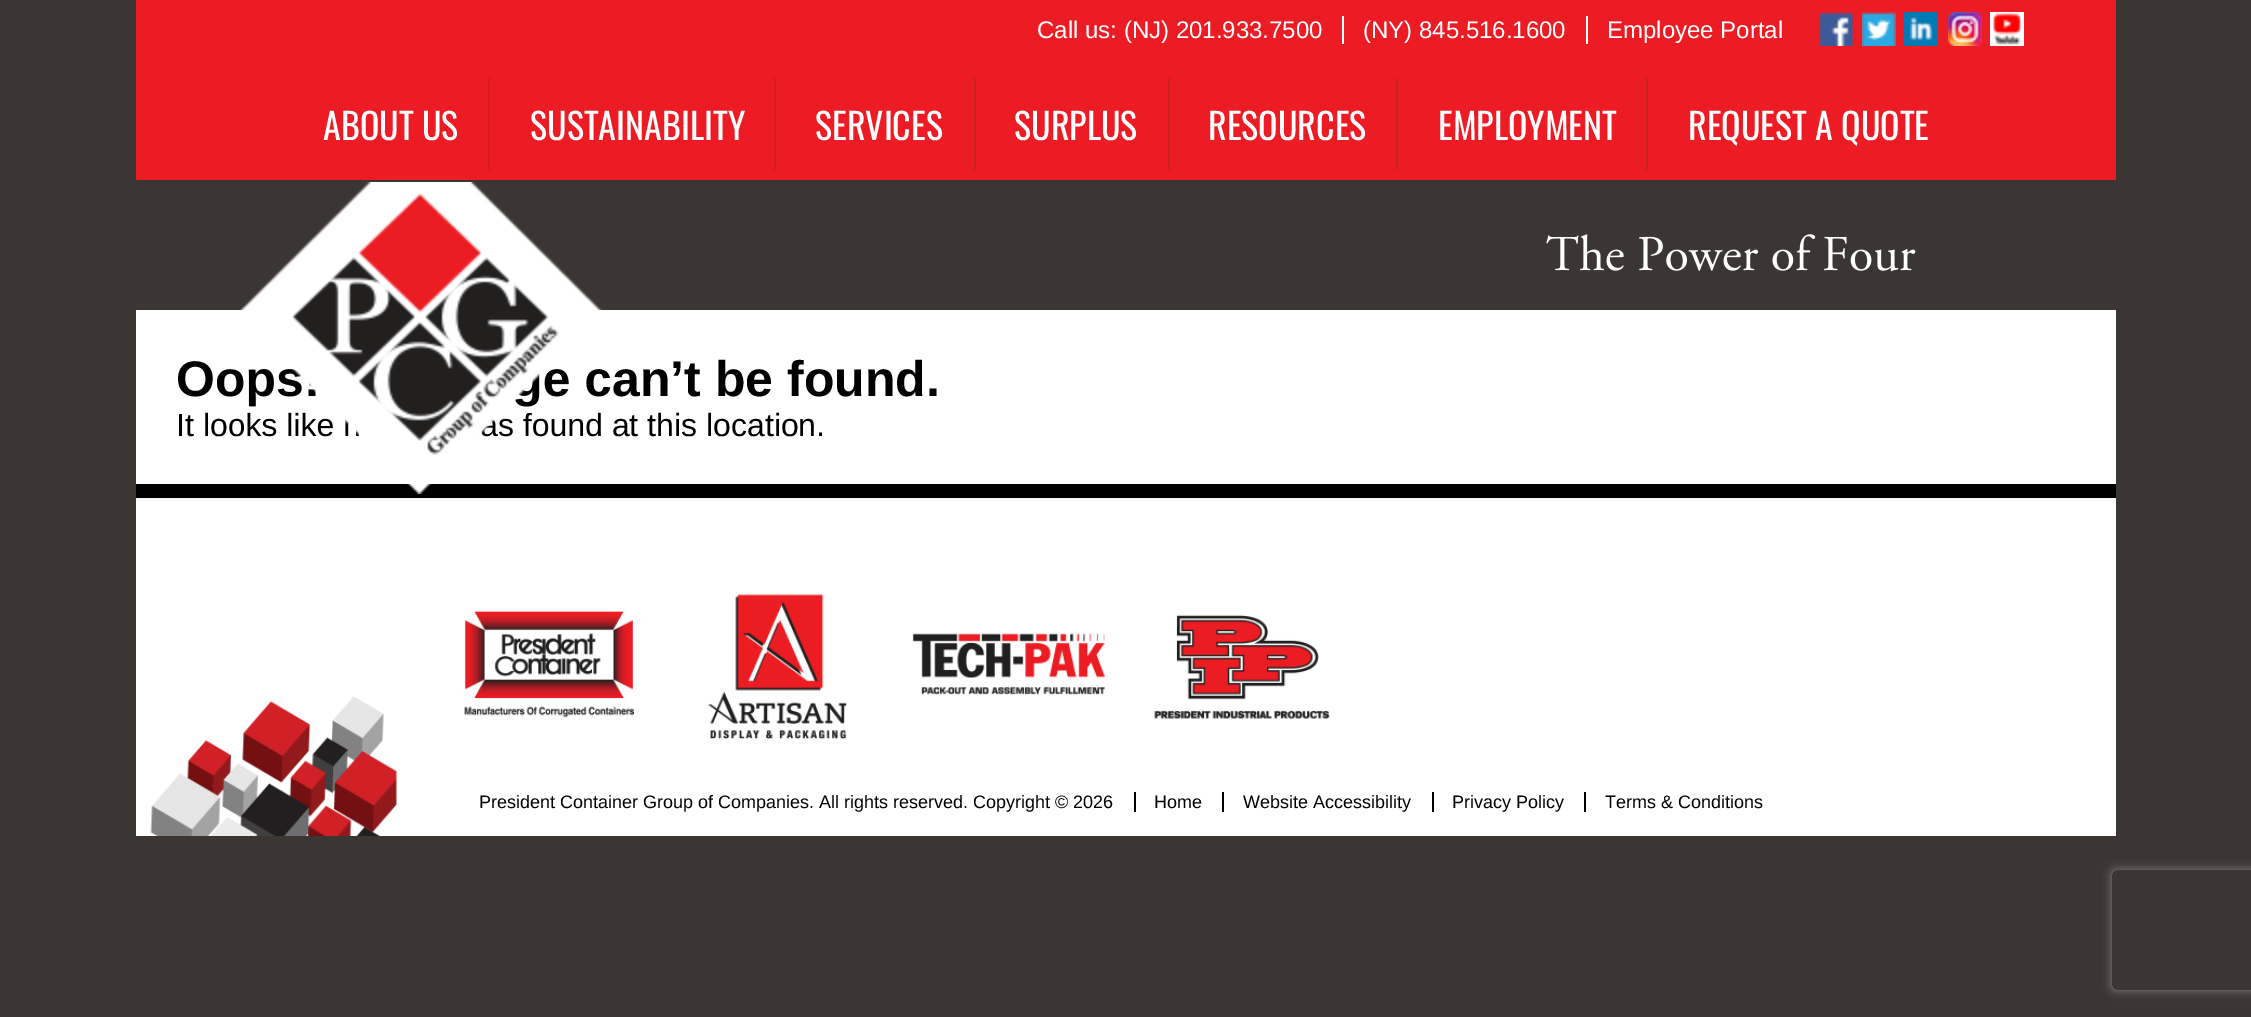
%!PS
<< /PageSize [2251 1017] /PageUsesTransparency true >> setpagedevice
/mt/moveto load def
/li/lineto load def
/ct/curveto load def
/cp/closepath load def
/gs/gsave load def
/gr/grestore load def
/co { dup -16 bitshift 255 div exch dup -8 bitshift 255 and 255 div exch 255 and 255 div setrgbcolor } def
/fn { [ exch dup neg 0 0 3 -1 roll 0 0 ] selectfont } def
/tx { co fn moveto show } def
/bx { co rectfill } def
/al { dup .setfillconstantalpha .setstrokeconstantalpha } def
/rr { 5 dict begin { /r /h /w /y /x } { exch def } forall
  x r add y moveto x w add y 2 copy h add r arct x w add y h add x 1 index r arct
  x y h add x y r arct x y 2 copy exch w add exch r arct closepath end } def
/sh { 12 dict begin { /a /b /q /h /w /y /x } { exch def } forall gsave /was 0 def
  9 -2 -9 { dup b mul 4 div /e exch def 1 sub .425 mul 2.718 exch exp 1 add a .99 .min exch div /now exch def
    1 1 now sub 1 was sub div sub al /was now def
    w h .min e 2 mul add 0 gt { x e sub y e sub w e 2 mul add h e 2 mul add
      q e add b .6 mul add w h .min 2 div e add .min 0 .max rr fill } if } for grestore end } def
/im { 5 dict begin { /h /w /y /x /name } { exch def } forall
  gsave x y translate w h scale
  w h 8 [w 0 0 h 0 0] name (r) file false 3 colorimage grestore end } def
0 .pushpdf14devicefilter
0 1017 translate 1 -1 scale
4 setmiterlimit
0 0 2251 1017 16#3B3634 bx
136 0 1980 180 16#ED1C24 bx
1342 16 2 28 16#FFFFFF bx
1586 16 2 28 16#FFFFFF bx
(media/1.raw) 1820 12 34 34 im
(media/2.raw) 1862 12 34 34 im
(media/3.raw) 1904 12 34 34 im
(media/4.raw) 1948 12 34 34 im
(media/5.raw) 1990 12 34 34 im
488 78 2 92 16#CA2121 bx
774 78 2 92 16#CA2121 bx
974 78 2 92 16#CA2121 bx
1168 78 2 92 16#CA2121 bx
1396 78 2 92 16#CA2121 bx
1646 78 2 92 16#CA2121 bx
(media/7.raw) 1546 234 370 38 im
136 310 1980 174 16#FFFFFF bx
136 484 1980 14 16#000000 bx
136 498 1980 338 16#FFFFFF bx
(media/8.raw) 150 696 247 140 im
(media/9.raw) 464 610 171 108 im
(media/10.raw) 708 594 139 146 im
(media/11.raw) 912 633 194 62 im
(media/12.raw) 1154 614 176 105 im
1134 792 2 20 16#000000 bx
1222 792 2 20 16#000000 bx
1432 792 2 20 16#000000 bx
1584 792 2 20 16#000000 bx
gs
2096 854 mt 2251 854 li 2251 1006 li 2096 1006 li cp 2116 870 mt 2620 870 li 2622 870 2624 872 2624 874 ct 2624 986 li 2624 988 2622 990 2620 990 ct 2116 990 li 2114 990 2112 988 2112 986 ct 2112 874 li 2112 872 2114 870 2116 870 ct cp eoclip newpath
16#808080 co
2112 870 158 120 4 5 1 sh
gr
(Call us: \(NJ\) 201.933.7500) 1037 38 /LiberationSans-Regular 24 16#FFFFFF tx
(\(NY\) 845.516.1600) 1363 38 /LiberationSans-Regular 24 16#FFFFFF tx
(Employee Portal) 1607 38 /LiberationSans-Regular 24 16#FFFFFF tx
(ABOUT US) 323 140 /Oswald-Regular 36 16#FFFFFF tx
(SUSTAINABILITY) 530 140 /Oswald-Regular 36 16#FFFFFF tx
(SERVICES) 815 140 /Oswald-Regular 36 16#FFFFFF tx
(SURPLUS) 1014 140 /Oswald-Regular 36 16#FFFFFF tx
(RESOURCES) 1208 140 /Oswald-Regular 36 16#FFFFFF tx
(EMPLOYMENT) 1438 140 /Oswald-Regular 36 16#FFFFFF tx
(REQUEST A QUOTE) 1688 140 /Oswald-Regular 36 16#FFFFFF tx
(Oops) 176 396 /LiberationSans-Bold 50 16#000000 tx
(ge can’t be found.) 512 396 /LiberationSans-Bold 50 16#000000 tx
(It looks like) 176 436 /LiberationSans-Regular 32 16#000000 tx
(as found at this location.) 480 436 /LiberationSans-Regular 32 16#000000 tx
(media/6.raw) 239 182 363 312 im
(President Container Group of Companies. All rights reserved. Copyright © 2026) 479 808 /LiberationSans-Regular 18 16#000000 tx
(Home) 1154 808 /LiberationSans-Regular 18 16#000000 tx
(Website Accessibility) 1243 808 /LiberationSans-Regular 18 16#000000 tx
(Privacy Policy) 1452 808 /LiberationSans-Regular 18 16#000000 tx
(Terms & Conditions) 1605 808 /LiberationSans-Regular 18 16#000000 tx
.poppdf14devicefilter showpage
